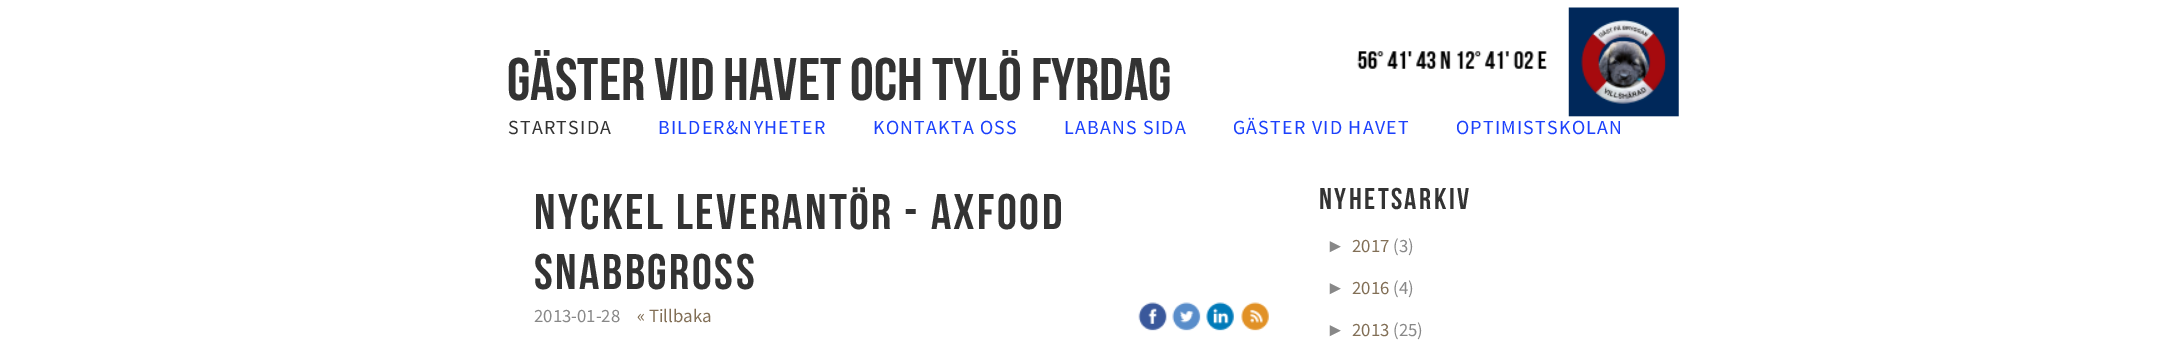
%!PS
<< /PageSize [2168 355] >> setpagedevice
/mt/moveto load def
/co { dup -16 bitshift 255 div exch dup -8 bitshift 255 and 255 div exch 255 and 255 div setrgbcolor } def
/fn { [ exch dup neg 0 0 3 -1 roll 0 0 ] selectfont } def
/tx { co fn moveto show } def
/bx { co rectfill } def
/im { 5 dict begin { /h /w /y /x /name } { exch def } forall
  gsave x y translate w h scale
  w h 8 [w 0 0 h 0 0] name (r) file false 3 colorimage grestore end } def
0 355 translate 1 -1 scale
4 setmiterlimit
0 0 2168 355 16#FFFFFF bx
(media/1.raw) 1357 7 322 110 im
(media/2.raw) 1138 302 29 29 im
(media/3.raw) 1172 302 29 29 im
(media/4.raw) 1206 302 28 29 im
(media/5.raw) 1241 302 28 29 im
(Gäster vid Havet och Tylö Fyrdag) 507 100 /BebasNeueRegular-Regular 60 16#333333 tx
/SourceSansPro-Regular 20 fn
508 134 mt 1.25 0 (STARTSIDA) ashow
16#1C41FC co
658 134 mt 1.25 0 (BILDER&NYHETER) ashow
873 134 mt 1.25 0 (KONTAKTA OSS) ashow
1064 134 mt 1.25 0 (LABANS SIDA) ashow
1233 134 mt 1.25 0 (GÄSTER VID HAVET) ashow
1456 134 mt 1.25 0 (OPTIMISTSKOLAN) ashow
/BebasNeueRegular-Regular 50 fn
16#333333 co
534 229 mt 2.5 0 (NYCKEL LEVERANTÖR - AXFOOD) ashow
534 289 mt 2.5 0 (SNABBGROSS) ashow
(2013-01-28) 534 322 /SourceSansPro-Regular 18.75 16#888888 tx
(« Tillbaka) 637 322 /SourceSansPro-Regular 18.75 16#826F56 tx
/BebasNeueRegular-Regular 30 fn
16#333333 co
1319 209 mt 2.5 0 (NYHETSARKIV) ashow
(►) 1326 252 /LiberationSans-Regular 18.75 16#888888 tx
(2017) 1352 252 /SourceSansPro-Regular 18.75 16#826F56 tx
(\(3\)) 1393 252 /SourceSansPro-Regular 18.75 16#888888 tx
(►) 1326 294 /LiberationSans-Regular 18.75 16#888888 tx
(2016) 1352 294 /SourceSansPro-Regular 18.75 16#826F56 tx
(\(4\)) 1393 294 /SourceSansPro-Regular 18.75 16#888888 tx
(►) 1326 336 /LiberationSans-Regular 18.75 16#888888 tx
(2013) 1352 336 /SourceSansPro-Regular 18.75 16#826F56 tx
(\(25\)) 1393 336 /SourceSansPro-Regular 18.75 16#888888 tx
showpage
